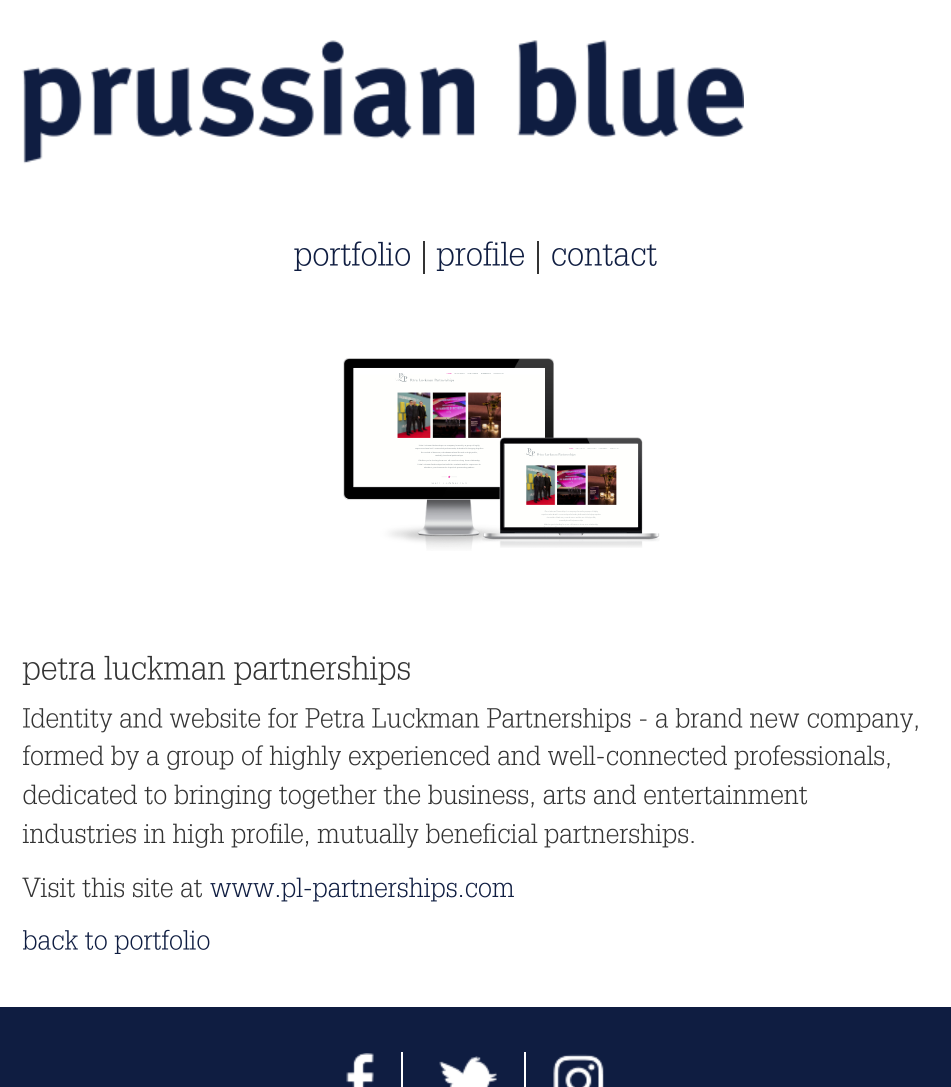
%!PS
<< /PageSize [951 1087] >> setpagedevice
/mt/moveto load def
/li/lineto load def
/cp/closepath load def
/fl/fill load def
/co { dup -16 bitshift 255 div exch dup -8 bitshift 255 and 255 div exch 255 and 255 div setrgbcolor } def
/bx { co rectfill } def
/im { 5 dict begin { /h /w /y /x /name } { exch def } forall
  gsave x y translate w h scale
  w h 8 [w 0 0 h 0 0] name (r) file false 3 colorimage grestore end } def
0 1087 translate 1 -1 scale
4 setmiterlimit
0 0 951 1087 16#FFFFFF bx
(media/1.raw) 22 40 722 124 im
(media/2.raw) 294 241 116 30 im
423 241 2 33 16#333333 bx
(media/3.raw) 436 241 88 30 im
537 241 2 33 16#333333 bx
(media/4.raw) 552 244 105 22 im
(media/5.raw) 343 358 211 193 im
(media/6.raw) 354 368 191 118 im
354 486 146 1 16#EEEEEE bx
(media/7.raw) 482 437 178 111 im
16#9F9F9F co
504 527 mt 504 444 li 505 445 li 505 527 li cp fl
(media/8.raw) 505 444 133 83 im
(media/9.raw) 22 655 388 30 im
(media/10.raw) 23 707 895 26 im
(media/11.raw) 23 745 867 25 im
(media/12.raw) 23 784 785 25 im
(media/13.raw) 22 823 672 25 im
(media/14.raw) 22 877 180 21 im
(media/15.raw) 210 877 304 25 im
(media/16.raw) 23 929 187 25 im
0 1007 951 80 16#0F1D41 bx
(media/17.raw) 346 1053 28 34 im
401 1052 2 35 16#FFFFFF bx
(media/18.raw) 439 1056 58 31 im
524 1052 2 35 16#FFFFFF bx
(media/19.raw) 553 1054 51 33 im
showpage
